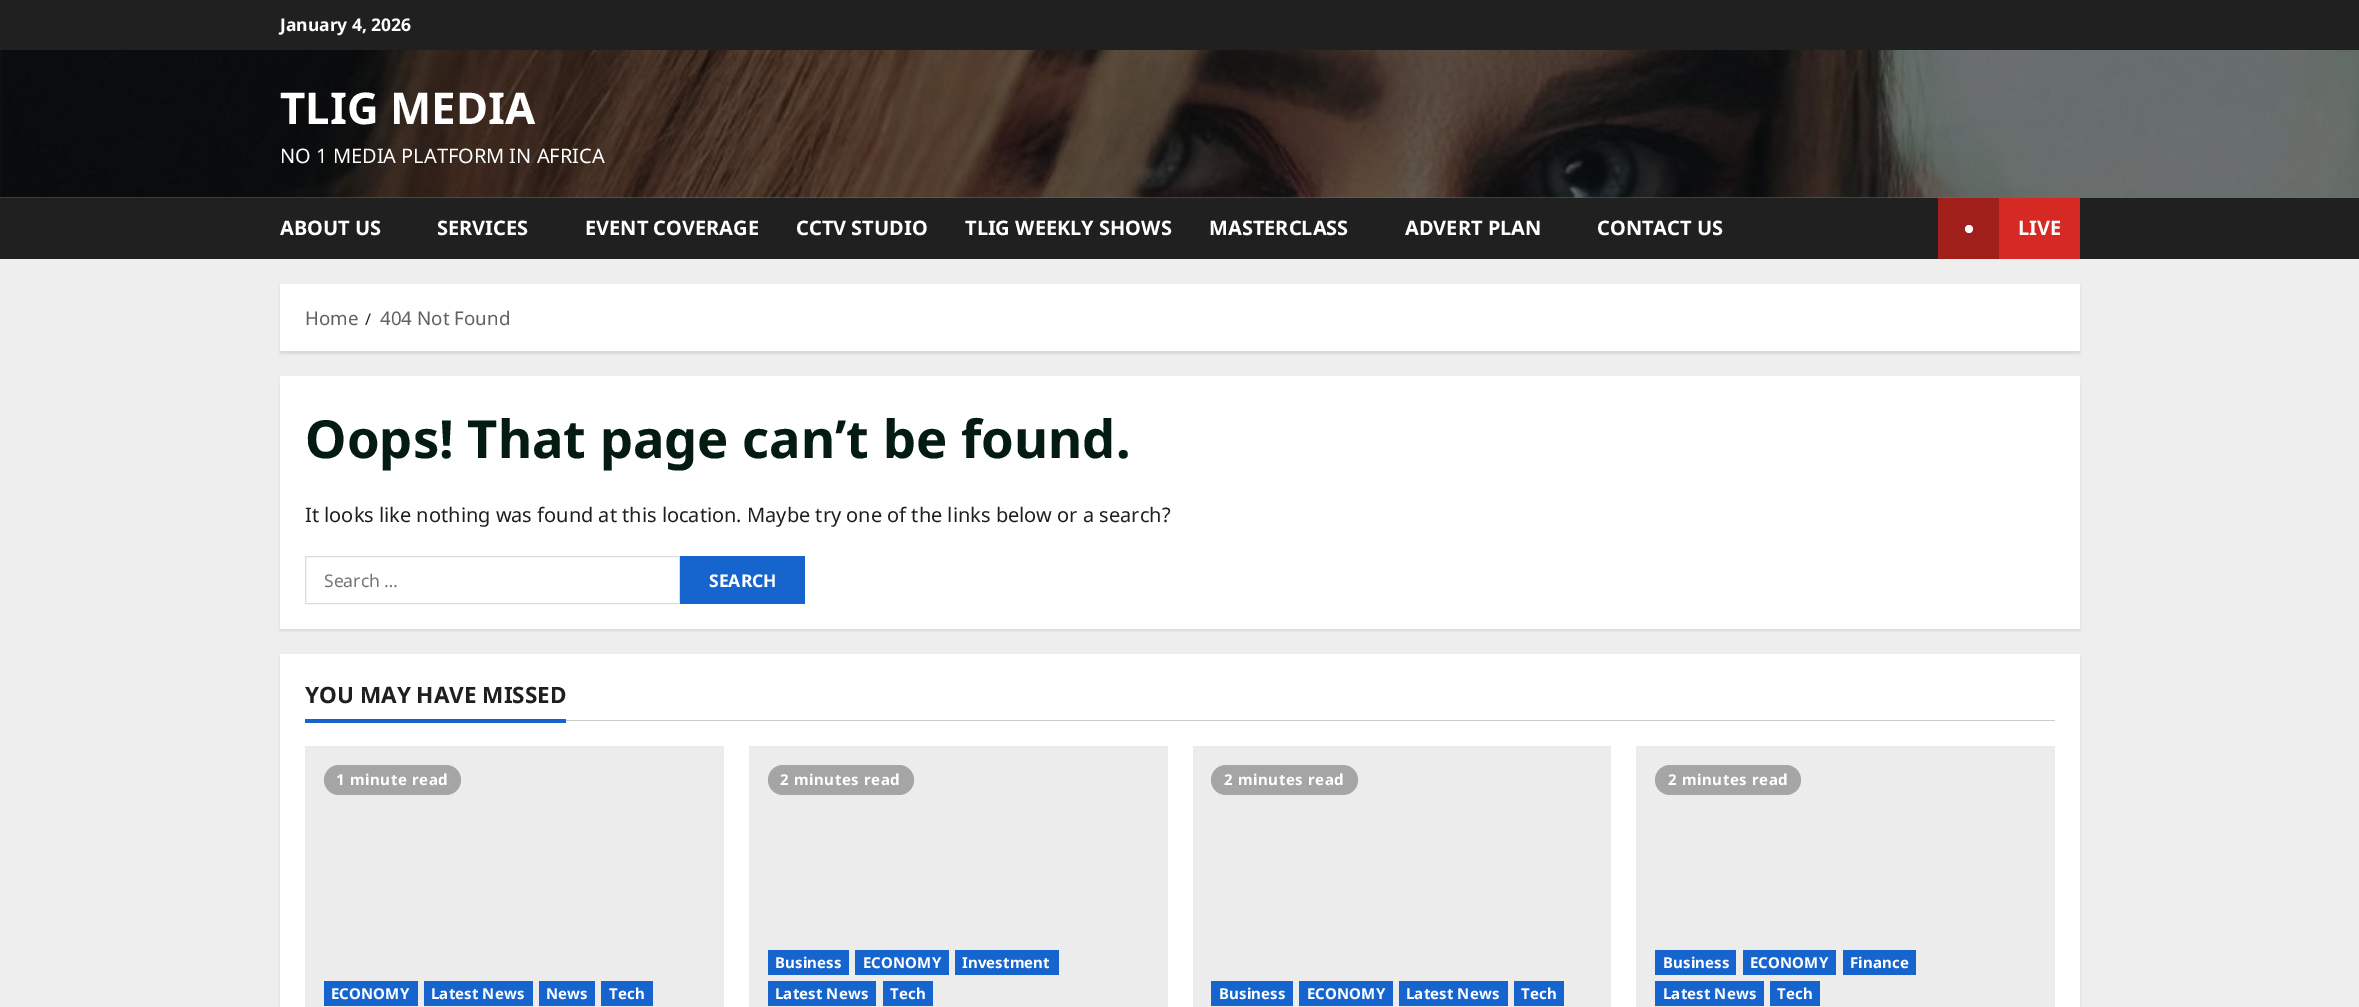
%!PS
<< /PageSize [2359 1007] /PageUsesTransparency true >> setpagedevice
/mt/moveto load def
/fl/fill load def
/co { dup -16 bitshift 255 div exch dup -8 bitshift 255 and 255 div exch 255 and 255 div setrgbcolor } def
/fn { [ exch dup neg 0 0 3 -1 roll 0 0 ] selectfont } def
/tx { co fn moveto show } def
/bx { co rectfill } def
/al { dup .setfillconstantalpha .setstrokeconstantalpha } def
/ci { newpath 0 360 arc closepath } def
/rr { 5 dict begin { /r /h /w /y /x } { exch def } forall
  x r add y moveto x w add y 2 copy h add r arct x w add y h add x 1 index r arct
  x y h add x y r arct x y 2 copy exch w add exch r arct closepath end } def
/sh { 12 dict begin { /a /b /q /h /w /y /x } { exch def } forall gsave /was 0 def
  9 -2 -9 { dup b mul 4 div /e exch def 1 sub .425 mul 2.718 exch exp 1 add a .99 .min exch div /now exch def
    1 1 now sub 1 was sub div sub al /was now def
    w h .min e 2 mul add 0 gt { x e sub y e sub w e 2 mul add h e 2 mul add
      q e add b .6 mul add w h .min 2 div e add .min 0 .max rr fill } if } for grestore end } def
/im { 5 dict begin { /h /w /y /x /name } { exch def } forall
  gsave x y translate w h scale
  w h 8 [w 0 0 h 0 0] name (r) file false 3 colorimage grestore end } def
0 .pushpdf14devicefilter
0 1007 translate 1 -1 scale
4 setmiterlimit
0 0 2359 1007 16#EEEEEE bx
0 197 2359 1 16#6B6B6B bx
0 0 2359 50 16#202020 bx
(media/1.raw) 0 50 2359 148 im
0 198 2359 61 16#202020 bx
1999 198 81 61 16#D72924 bx
1938 198 61 61 16#A11F1B bx
16#FFFFFF co
1969 229 4 ci fl
16#000000 co
280 286 1800 68 0 1 .08 sh
280 284 1800 67 16#FFFFFF bx
16#000000 co
280 379 1800 252 0 1 .08 sh
280 376 1800 253 16#FFFFFF bx
16#DCDCDC co
305.5 556.5 374 47 rectstroke
680 556 125 48 16#1665CF bx
16#000000 co
280 656 1800 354 0 1 .08 sh
280 654 1800 353 16#FFFFFF bx
566 720 1489 1 16#CCCCCC bx
305 719 261 4 16#1665CF bx
305 746 419 261 16#ECECEC bx
16#A5A5A5 co
324 765 137 30 15 rr fl
324 981 94 25 16#1665CF bx
424 981 109 25 16#1665CF bx
539 981 56 25 16#1665CF bx
601 981 52 25 16#1665CF bx
749 746 419 261 16#ECECEC bx
16#A5A5A5 co
768 765 146 30 15 rr fl
768 950 81 25 16#1665CF bx
855 950 94 25 16#1665CF bx
955 950 104 25 16#1665CF bx
768 981 108 25 16#1665CF bx
883 981 50 25 16#1665CF bx
1193 746 418 261 16#ECECEC bx
16#A5A5A5 co
1211 765 147 30 15 rr fl
1211 981 82 25 16#1665CF bx
1299 981 94 25 16#1665CF bx
1399 981 109 25 16#1665CF bx
1514 981 50 25 16#1665CF bx
1636 746 419 261 16#ECECEC bx
16#A5A5A5 co
1655 765 146 30 15 rr fl
1655 950 81 25 16#1665CF bx
1743 950 93 25 16#1665CF bx
1843 950 73 25 16#1665CF bx
1655 981 109 25 16#1665CF bx
1770 981 50 25 16#1665CF bx
(January 4, 2026) 280 31 /NotoSans-Bold 17.5 16#FFFFFF tx
(TLIG MEDIA) 280 124 /NotoSans-Bold 43.75 16#FFFFFF tx
(NO 1 MEDIA PLATFORM IN AFRICA) 280 163 /NotoSans-Regular 20 16#FFFFFF tx
(ABOUT US) 280 235 /NotoSans-Bold 20 16#FFFFFF tx
(SERVICES) 437 235 /NotoSans-Bold 20 16#FFFFFF tx
(EVENT COVERAGE) 585 235 /NotoSans-Bold 20 16#FFFFFF tx
(CCTV STUDIO) 796 235 /NotoSans-Bold 20 16#FFFFFF tx
(TLIG WEEKLY SHOWS) 965 235 /NotoSans-Bold 20 16#FFFFFF tx
(MASTERCLASS) 1209 235 /NotoSans-Bold 20 16#FFFFFF tx
(ADVERT PLAN) 1405 235 /NotoSans-Bold 20 16#FFFFFF tx
(CONTACT US) 1597 235 /NotoSans-Bold 20 16#FFFFFF tx
(LIVE) 2018 235 /NotoSans-Bold 20 16#FFFFFF tx
(Home) 305 325 /NotoSans-Regular 18.75 16#626262 tx
(/) 365 325 /NotoSans-Regular 16 16#1F1F1F tx
(404 Not Found) 380 325 /NotoSans-Regular 18.75 16#626262 tx
(Oops! That page can’t be found.) 305 458 /NotoSans-Bold 52.5 16#031B11 tx
(It looks like nothing was found at this location. Maybe try one of the links below or a search?) 305 522 /NotoSans-Regular 20 16#1F1F1F tx
(Search …) 324 587 /NotoSans-Regular 17.5 16#757575 tx
(SEARCH) 709 587 /NotoSans-Bold 17.5 16#FFFFFF tx
(YOU MAY HAVE MISSED) 305 703 /NotoSans-Bold 22.5 16#1F1F1F tx
/NotoSans-Bold 15 fn
16#FFFFFF co
336 785 mt .6 0 (1 minute read) ashow
331 999 mt .1 0 (ECONOMY) ashow
431 999 mt .1 0 (Latest News) ashow
546 999 mt .1 0 (News) ashow
609 999 mt .1 0 (Tech) ashow
780 785 mt .6 0 (2 minutes read) ashow
775 968 mt .1 0 (Business) ashow
863 968 mt .1 0 (ECONOMY) ashow
962 968 mt .1 0 (Investment) ashow
775 999 mt .1 0 (Latest News) ashow
890 999 mt .1 0 (Tech) ashow
1224 785 mt .6 0 (2 minutes read) ashow
1219 999 mt .1 0 (Business) ashow
1307 999 mt .1 0 (ECONOMY) ashow
1406 999 mt .1 0 (Latest News) ashow
1521 999 mt .1 0 (Tech) ashow
1668 785 mt .6 0 (2 minutes read) ashow
1663 968 mt .1 0 (Business) ashow
1750 968 mt .1 0 (ECONOMY) ashow
1850 968 mt .1 0 (Finance) ashow
1663 999 mt .1 0 (Latest News) ashow
1777 999 mt .1 0 (Tech) ashow
.poppdf14devicefilter showpage
